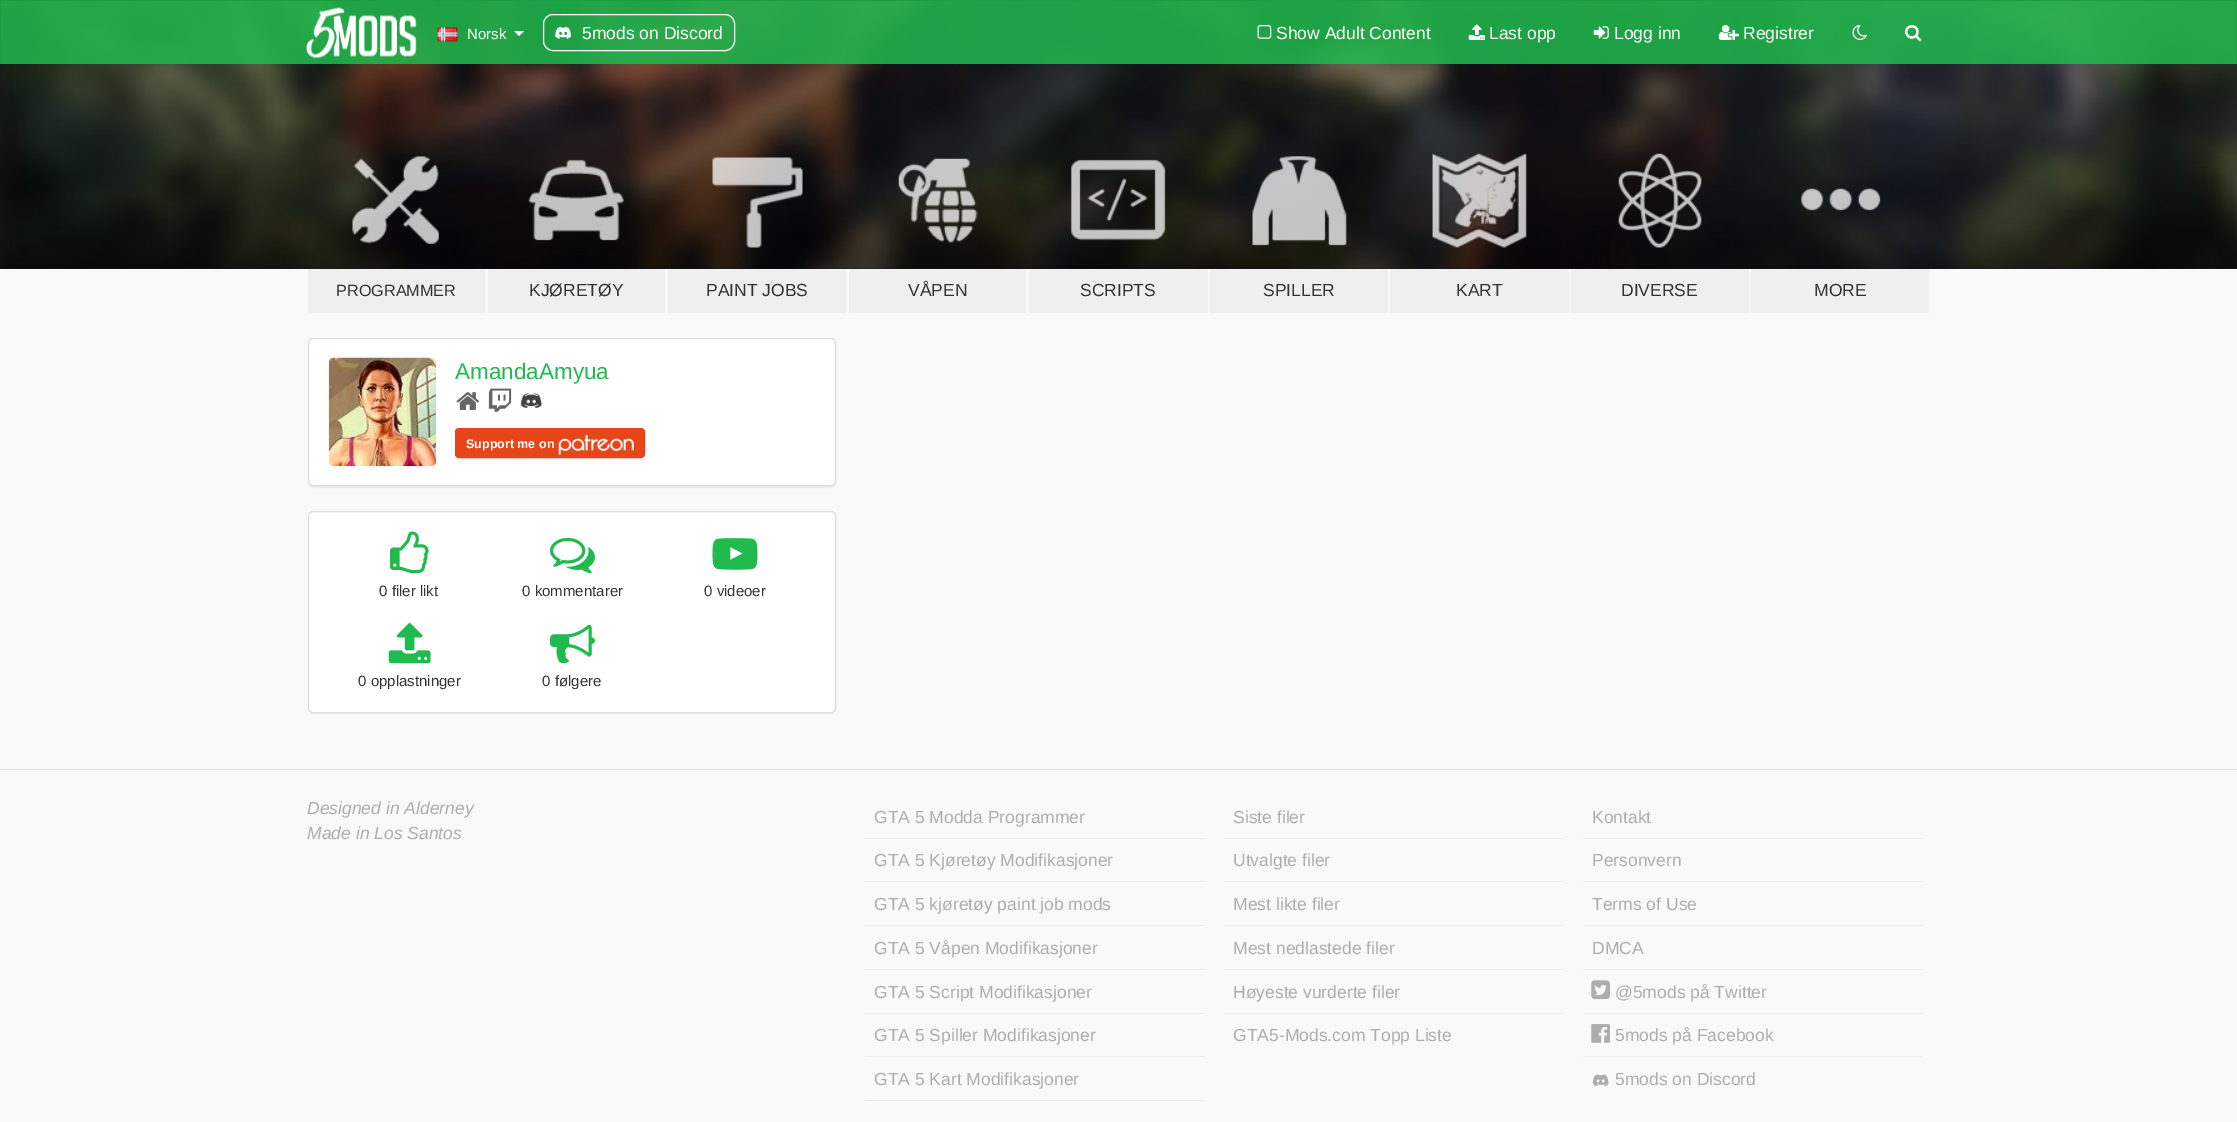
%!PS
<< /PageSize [2237 1122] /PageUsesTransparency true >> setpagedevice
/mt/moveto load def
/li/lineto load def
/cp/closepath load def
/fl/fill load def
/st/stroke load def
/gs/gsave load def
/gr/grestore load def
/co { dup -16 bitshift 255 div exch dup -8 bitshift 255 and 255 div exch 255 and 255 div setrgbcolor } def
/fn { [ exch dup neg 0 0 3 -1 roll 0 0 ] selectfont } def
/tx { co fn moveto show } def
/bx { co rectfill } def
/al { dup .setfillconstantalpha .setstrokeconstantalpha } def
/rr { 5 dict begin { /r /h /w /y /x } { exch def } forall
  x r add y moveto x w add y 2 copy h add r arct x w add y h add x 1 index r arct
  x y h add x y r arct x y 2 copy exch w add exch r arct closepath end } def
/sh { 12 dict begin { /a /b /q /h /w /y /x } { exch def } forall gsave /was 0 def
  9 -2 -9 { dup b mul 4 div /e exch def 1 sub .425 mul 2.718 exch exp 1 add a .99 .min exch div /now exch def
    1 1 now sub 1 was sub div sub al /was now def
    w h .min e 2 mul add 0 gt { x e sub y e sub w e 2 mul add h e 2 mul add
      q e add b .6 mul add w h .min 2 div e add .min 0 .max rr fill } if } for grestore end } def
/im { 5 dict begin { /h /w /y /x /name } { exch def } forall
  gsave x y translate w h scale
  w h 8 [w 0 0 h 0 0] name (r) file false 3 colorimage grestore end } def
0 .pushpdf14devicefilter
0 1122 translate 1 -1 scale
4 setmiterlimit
0 0 2237 1122 16#F9F9F9 bx
(media/10.raw) 0 1 2237 268 im
0.85 al
1 1 2235 63 16#20BA4E bx
1 al
0 0 2237 1 16#1B9E42 bx
2236 0 1 64 16#1B9E42 bx
0 0 1 64 16#1B9E42 bx
(media/1.raw) 306 7 111 51 im
(media/2.raw) 437 27 21 15 im
16#FFFFFF co
514 31 mt 524 31 li 519 36 li cp fl
543.5 14.5 191 36 9.5 rr st
(media/3.raw) 555 26 16 13 im
(media/4.raw) 1257 25 15 14 im
(media/5.raw) 1468 24 17 16 im
(media/6.raw) 1593 26 16 13 im
(media/7.raw) 1718 25 21 15 im
(media/8.raw) 1852 25 15 15 im
(media/9.raw) 1905 25 17 17 im
(media/11.raw) 352 156 87 88 im
308 269 177 44 16#EFEFEF bx
(media/12.raw) 528 159 96 82 im
488 269 177 44 16#EFEFEF bx
(media/13.raw) 712 157 91 91 im
668 269 178 44 16#EFEFEF bx
(media/14.raw) 898 158 80 85 im
849 269 177 44 16#EFEFEF bx
(media/15.raw) 1071 159 95 82 im
1029 269 179 44 16#EFEFEF bx
(media/16.raw) 1252 156 95 90 im
1210 269 178 44 16#EFEFEF bx
(media/17.raw) 1432 153 95 95 im
1390 269 179 44 16#EFEFEF bx
(media/18.raw) 1618 153 84 95 im
1571 269 178 44 16#EFEFEF bx
(media/19.raw) 1801 188 80 23 im
1751 269 178 44 16#EFEFEF bx
16#000000 co
308 339 528 149 5 .5 .05 sh
16#FFFFFF co
308.5 338.5 527 147 4.5 rr gs fl gr
16#DDDDDD co
st
(media/20.raw) 328 357 109 110 im
(media/21.raw) 456 392 24 18 im
(media/22.raw) 488 388 24 24 im
(media/23.raw) 520 393 22 15 im
16#E6461A co
455.5 428.5 189 29 3.5 rr gs fl gr
st
(media/24.raw) 558 435 76 20 im
16#000000 co
308 513 528 201 5 .5 .05 sh
16#FFFFFF co
308.5 511.5 527 201 4.5 rr gs fl gr
16#DDDDDD co
st
(media/25.raw) 390 531 39 43 im
(media/26.raw) 550 537 45 37 im
(media/27.raw) 712 538 46 32 im
(media/28.raw) 388 623 43 41 im
(media/29.raw) 550 624 45 40 im
0 769 2237 1 16#E7E7E7 bx
865 838 340 1 16#EEEEEE bx
865 881 340 1 16#EEEEEE bx
865 925 340 1 16#EEEEEE bx
865 969 340 1 16#EEEEEE bx
865 1013 340 1 16#EEEEEE bx
865 1056 340 1 16#EEEEEE bx
865 1100 340 1 16#EEEEEE bx
1224 838 340 1 16#EEEEEE bx
1224 881 340 1 16#EEEEEE bx
1224 925 340 1 16#EEEEEE bx
1224 969 340 1 16#EEEEEE bx
1224 1013 340 1 16#EEEEEE bx
1583 838 340 1 16#EEEEEE bx
1583 881 340 1 16#EEEEEE bx
1583 925 340 1 16#EEEEEE bx
1583 969 340 1 16#EEEEEE bx
1583 1013 340 1 16#EEEEEE bx
(media/30.raw) 1591 980 19 20 im
1583 1056 340 1 16#EEEEEE bx
(media/31.raw) 1591 1024 19 19 im
(media/32.raw) 1592 1074 17 13 im
(Norsk) 467 39 /LiberationSans-Regular 15 16#FFFFFF tx
(5mods on Discord) 582 39 /LiberationSans-Regular 17.5 16#FFFFFF tx
(Show Adult Content) 1276 39 /LiberationSans-Regular 17.5 16#FFFFFF tx
(Last opp) 1489 39 /LiberationSans-Regular 17.5 16#FFFFFF tx
(Logg inn) 1614 39 /LiberationSans-Regular 17.5 16#FFFFFF tx
(Registrer) 1743 39 /LiberationSans-Regular 17.5 16#FFFFFF tx
(PROGRAMMER) 336 296 /LiberationSans-Regular 16.25 16#333333 tx
(KJØRETØY) 529 296 /LiberationSans-Regular 17.5 16#333333 tx
(PAINT JOBS) 706 296 /LiberationSans-Regular 17.5 16#333333 tx
(VÅPEN) 908 296 /LiberationSans-Regular 17.5 16#333333 tx
(SCRIPTS) 1080 296 /LiberationSans-Regular 17.5 16#333333 tx
(SPILLER) 1263 296 /LiberationSans-Regular 17.5 16#333333 tx
(KART) 1456 296 /LiberationSans-Regular 17.5 16#333333 tx
(DIVERSE) 1621 296 /LiberationSans-Regular 17.5 16#333333 tx
(MORE) 1814 296 /LiberationSans-Regular 17.5 16#333333 tx
(AmandaAmyua) 455 379 /LiberationSans-Regular 22.5 16#20BA4E tx
(Support me on) 466 448 /LiberationSans-Bold 12.5 16#FFFFFF tx
(0 filer likt) 379 596 /LiberationSans-Regular 15 16#333333 tx
(0 kommentarer) 522 596 /LiberationSans-Regular 15 16#333333 tx
(0 videoer) 704 596 /LiberationSans-Regular 15 16#333333 tx
(0 opplastninger) 358 686 /LiberationSans-Regular 15 16#333333 tx
(0 følgere) 542 686 /LiberationSans-Regular 15 16#333333 tx
(Designed in Alderney) 307 814 /LiberationSans-Italic 17.5 16#ADADAD tx
(Made in Los Santos) 307 839 /LiberationSans-Italic 17.5 16#ADADAD tx
(GTA 5 Modda Programmer) 874 823 /LiberationSans-Regular 17.5 16#ADADAD tx
(GTA 5 Kjøretøy Modifikasjoner) 874 866 /LiberationSans-Regular 17.5 16#ADADAD tx
(GTA 5 kjøretøy paint job mods) 874 910 /LiberationSans-Regular 17.5 16#ADADAD tx
(GTA 5 Våpen Modifikasjoner) 874 954 /LiberationSans-Regular 17.5 16#ADADAD tx
(GTA 5 Script Modifikasjoner) 874 998 /LiberationSans-Regular 17.5 16#ADADAD tx
(GTA 5 Spiller Modifikasjoner) 874 1041 /LiberationSans-Regular 17.5 16#ADADAD tx
(GTA 5 Kart Modifikasjoner) 874 1085 /LiberationSans-Regular 17.5 16#ADADAD tx
(Siste filer) 1233 823 /LiberationSans-Regular 17.5 16#ADADAD tx
(Utvalgte filer) 1233 866 /LiberationSans-Regular 17.5 16#ADADAD tx
(Mest likte filer) 1233 910 /LiberationSans-Regular 17.5 16#ADADAD tx
(Mest nedlastede filer) 1233 954 /LiberationSans-Regular 17.5 16#ADADAD tx
(Høyeste vurderte filer) 1233 998 /LiberationSans-Regular 17.5 16#ADADAD tx
(GTA5-Mods.com Topp Liste) 1233 1041 /LiberationSans-Regular 17.5 16#ADADAD tx
(Kontakt) 1592 823 /LiberationSans-Regular 17.5 16#ADADAD tx
(Personvern) 1592 866 /LiberationSans-Regular 17.5 16#ADADAD tx
(Terms of Use) 1592 910 /LiberationSans-Regular 17.5 16#ADADAD tx
(DMCA) 1592 954 /LiberationSans-Regular 17.5 16#ADADAD tx
(@5mods på Twitter) 1615 998 /LiberationSans-Regular 17.5 16#ADADAD tx
(5mods på Facebook) 1615 1041 /LiberationSans-Regular 17.5 16#ADADAD tx
(5mods on Discord) 1615 1085 /LiberationSans-Regular 17.5 16#ADADAD tx
.poppdf14devicefilter showpage
